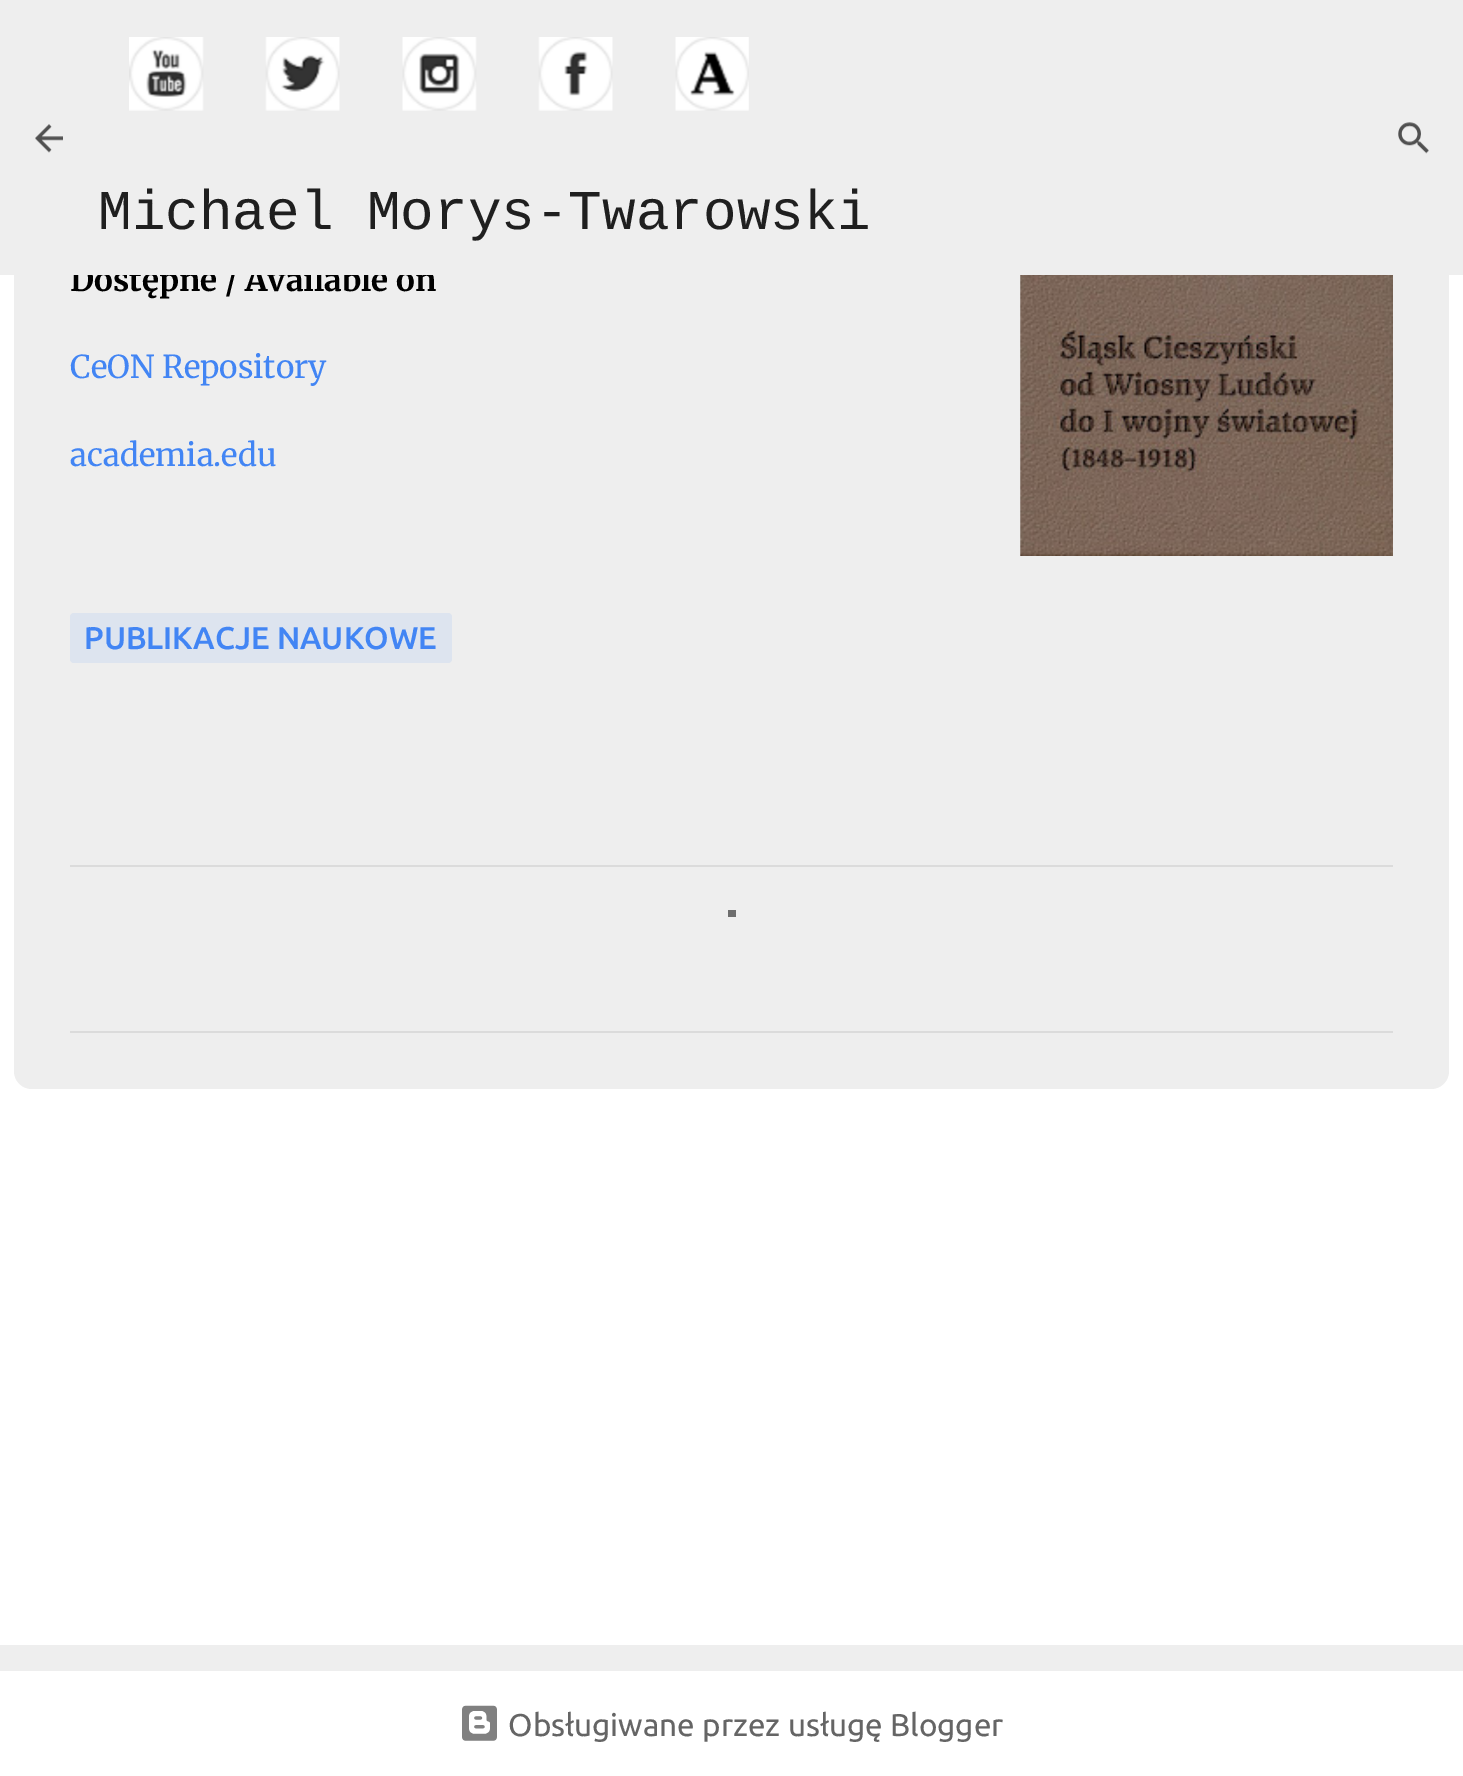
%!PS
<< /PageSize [1463 1776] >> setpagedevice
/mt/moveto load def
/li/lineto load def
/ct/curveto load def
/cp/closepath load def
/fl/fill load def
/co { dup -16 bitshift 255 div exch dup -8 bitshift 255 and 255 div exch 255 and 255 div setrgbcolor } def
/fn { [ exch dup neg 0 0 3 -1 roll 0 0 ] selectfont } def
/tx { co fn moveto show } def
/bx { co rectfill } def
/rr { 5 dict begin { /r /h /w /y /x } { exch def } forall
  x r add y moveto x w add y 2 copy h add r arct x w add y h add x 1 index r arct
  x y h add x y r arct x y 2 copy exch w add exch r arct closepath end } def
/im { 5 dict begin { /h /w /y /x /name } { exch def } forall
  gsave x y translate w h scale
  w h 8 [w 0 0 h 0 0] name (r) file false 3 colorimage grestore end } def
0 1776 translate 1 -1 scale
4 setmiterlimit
0 0 1463 1776 16#FFFFFF bx
14 275 1435 590 16#EEEEEE bx
(media/8.raw) 1020 275 373 281 im
16#DDE4EF co
70 613 382 50 4 rr fl
16#EEEEEE co
14 865 mt 1449 865 li 1449 1071 li 1449 1081 1441 1089 1431 1089 ct 32 1089 li 22 1089 14 1081 14 1071 ct cp fl
70 865 1323 2 16#DBDBDB bx
70 1031 1323 2 16#DBDBDB bx
0 1645 1463 26 16#EEEEEE bx
(media/9.raw) 462 1705 35 36 im
728 910 8 7 16#6D6D6D bx
(Dostępne / Available on) 70 291 /Merriweather-Bold 31.5 16#000000 tx
0 0 1463 275 16#EEEEEE bx
(media/2.raw) 1398 122 31 32 im
(Michael Morys-Twarowski) 98 229 /LiberationMono-Regular 56 16#1F1F1F tx
(media/1.raw) 35 124 28 29 im
(media/7.raw) 675 37 74 74 im
(media/6.raw) 538 37 75 74 im
(media/5.raw) 402 37 75 74 im
(media/4.raw) 265 37 75 74 im
(media/3.raw) 129 37 75 74 im
(CeON Repository) 70 378 /Merriweather-Regular 31.5 16#4285F4 tx
(academia.edu) 70 466 /Merriweather-Regular 31.5 16#4285F4 tx
(PUBLIKACJE NAUKOWE) 84 649 /Ubuntu-Medium 31.5 16#4285F4 tx
(Obsługiwane przez usługę Blogger) 508 1736 /Ubuntu-Regular 31.5 16#656565 tx
showpage
